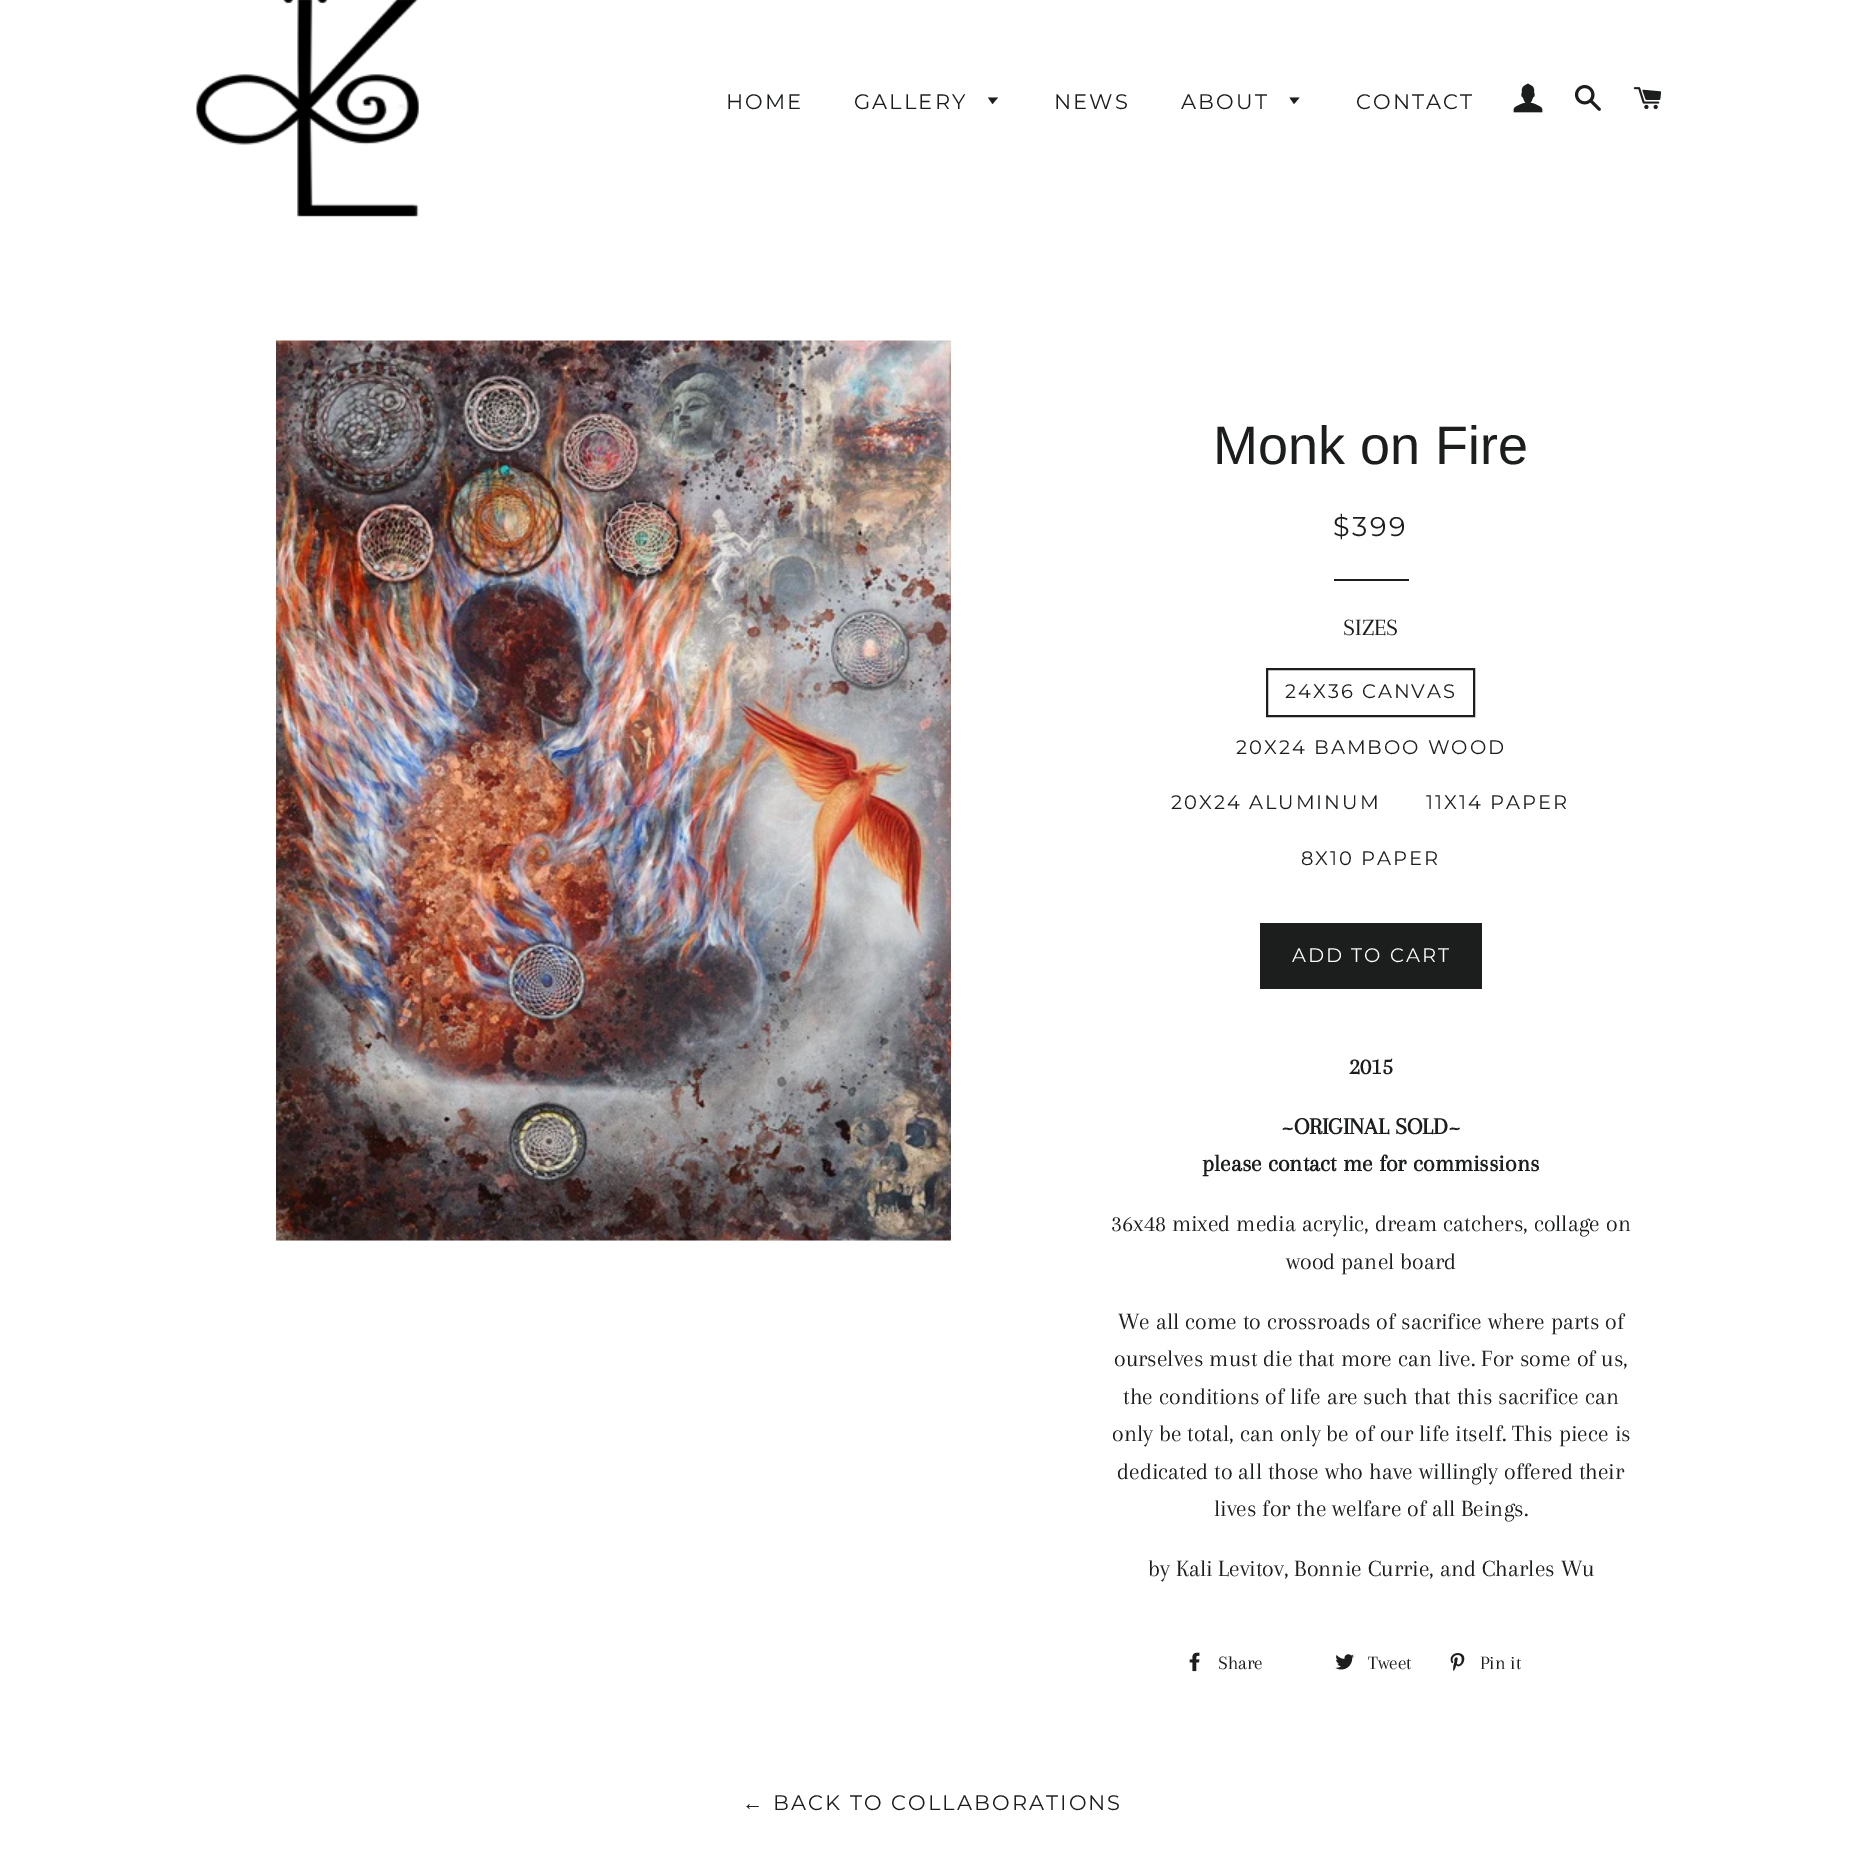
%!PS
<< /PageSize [1864 1862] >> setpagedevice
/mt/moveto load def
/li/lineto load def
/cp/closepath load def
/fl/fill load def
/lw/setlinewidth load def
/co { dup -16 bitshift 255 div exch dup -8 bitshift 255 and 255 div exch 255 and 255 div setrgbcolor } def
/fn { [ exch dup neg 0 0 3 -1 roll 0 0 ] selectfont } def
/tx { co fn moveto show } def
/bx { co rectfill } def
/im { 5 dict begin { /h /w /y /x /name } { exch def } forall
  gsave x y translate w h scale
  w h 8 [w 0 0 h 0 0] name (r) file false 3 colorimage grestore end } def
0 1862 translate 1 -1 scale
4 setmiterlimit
0 0 1864 1862 16#FFFFFF bx
(media/1.raw) 196 0 223 217 im
16#1C1D1D co
988 97.5 mt 992.5 104 li 998 97.5 li cp fl
1289.5 97.5 mt 1294 104 li 1299.5 97.5 li cp fl
(media/2.raw) 1513 83 30 30 im
(media/3.raw) 1574 85 27 26 im
(media/4.raw) 1633 87 29 23 im
276 1240 675 1 16#F7F7F7 bx
(media/5.raw) 276 340 675 901 im
1334 579 75 2 16#1C1D1D bx
2 lw
1267 669 207 47 rectstroke
1260 923 222 66 16#1C1D1D bx
(media/6.raw) 1189 1652 11 20 im
(media/7.raw) 1335 1654 19 16 im
(media/8.raw) 1450 1653 15 18 im
/Montserrat-Thin 21 fn
726 109 mt 2.1 0 (HOME) ashow
854 109 mt 2.1 0 (GALLERY) ashow
1054 109 mt 2.1 0 (NEWS) ashow
1181 109 mt 2.1 0 (ABOUT) ashow
1356 109 mt 2.1 0 (CONTACT) ashow
(Monk on Fire) 1213 464 /LiberationSans-Regular 54 16#1C1D1D tx
/Montserrat-Thin 27 fn
1333 536 mt 2.5 0 ($399) ashow
(SIZES) 1343 635 /Arapey-Regular 24 16#1C1D1D tx
/Montserrat-Thin 19.5 fn
1285 698 mt 2 0 (24X36 CANVAS) ashow
1236 754 mt 2 0 (20X24 BAMBOO WOOD) ashow
1171 809 mt 2 0 (20X24 ALUMINUM) ashow
1426 809 mt 2 0 (11X14 PAPER) ashow
1301 865 mt 2 0 (8X10 PAPER) ashow
16#FFFFFF co
1292 962 mt 2 0 (ADD TO CART) ashow
(2015) 1349 1074 /Arapey-Bold 24 16#1C1D1D tx
(~ORIGINAL SOLD~) 1281 1134 /Arapey-Bold 24 16#1C1D1D tx
(please contact me for commissions) 1202 1171 /Arapey-Bold 24 16#1C1D1D tx
(36x48 mixed media acrylic, dream catchers, collage on) 1111 1231 /Arapey-Regular 24 16#1C1D1D tx
(wood panel board) 1286 1269 /Arapey-Regular 24 16#1C1D1D tx
(We all come to crossroads of sacrifice where parts of) 1118 1329 /Arapey-Regular 24 16#1C1D1D tx
(ourselves must die that more can live. For some of us,) 1114 1366 /Arapey-Regular 24 16#1C1D1D tx
(the conditions of life are such that this sacrifice can) 1123 1404 /Arapey-Regular 24 16#1C1D1D tx
(only be total, can only be of our life itself. This piece is) 1112 1441 /Arapey-Regular 24 16#1C1D1D tx
(dedicated to all those who have willingly offered their) 1117 1479 /Arapey-Regular 24 16#1C1D1D tx
(lives for the welfare of all Beings.) 1214 1516 /Arapey-Regular 24 16#1C1D1D tx
(by Kali Levitov, Bonnie Currie, and Charles Wu) 1148 1576 /Arapey-Regular 24 16#1C1D1D tx
(Share) 1218 1669 /Arapey-Regular 19.5 16#1C1D1D tx
(Tweet) 1368 1669 /Arapey-Regular 19.5 16#1C1D1D tx
(Pin it) 1480 1669 /Arapey-Regular 19.5 16#1C1D1D tx
/LiberationSans-Regular 21 fn
742 1810 mt 2.1 0 (←) ashow
/Montserrat-Thin 21 fn
773 1810 mt 2.1 0 (BACK TO COLLABORATIONS) ashow
showpage
